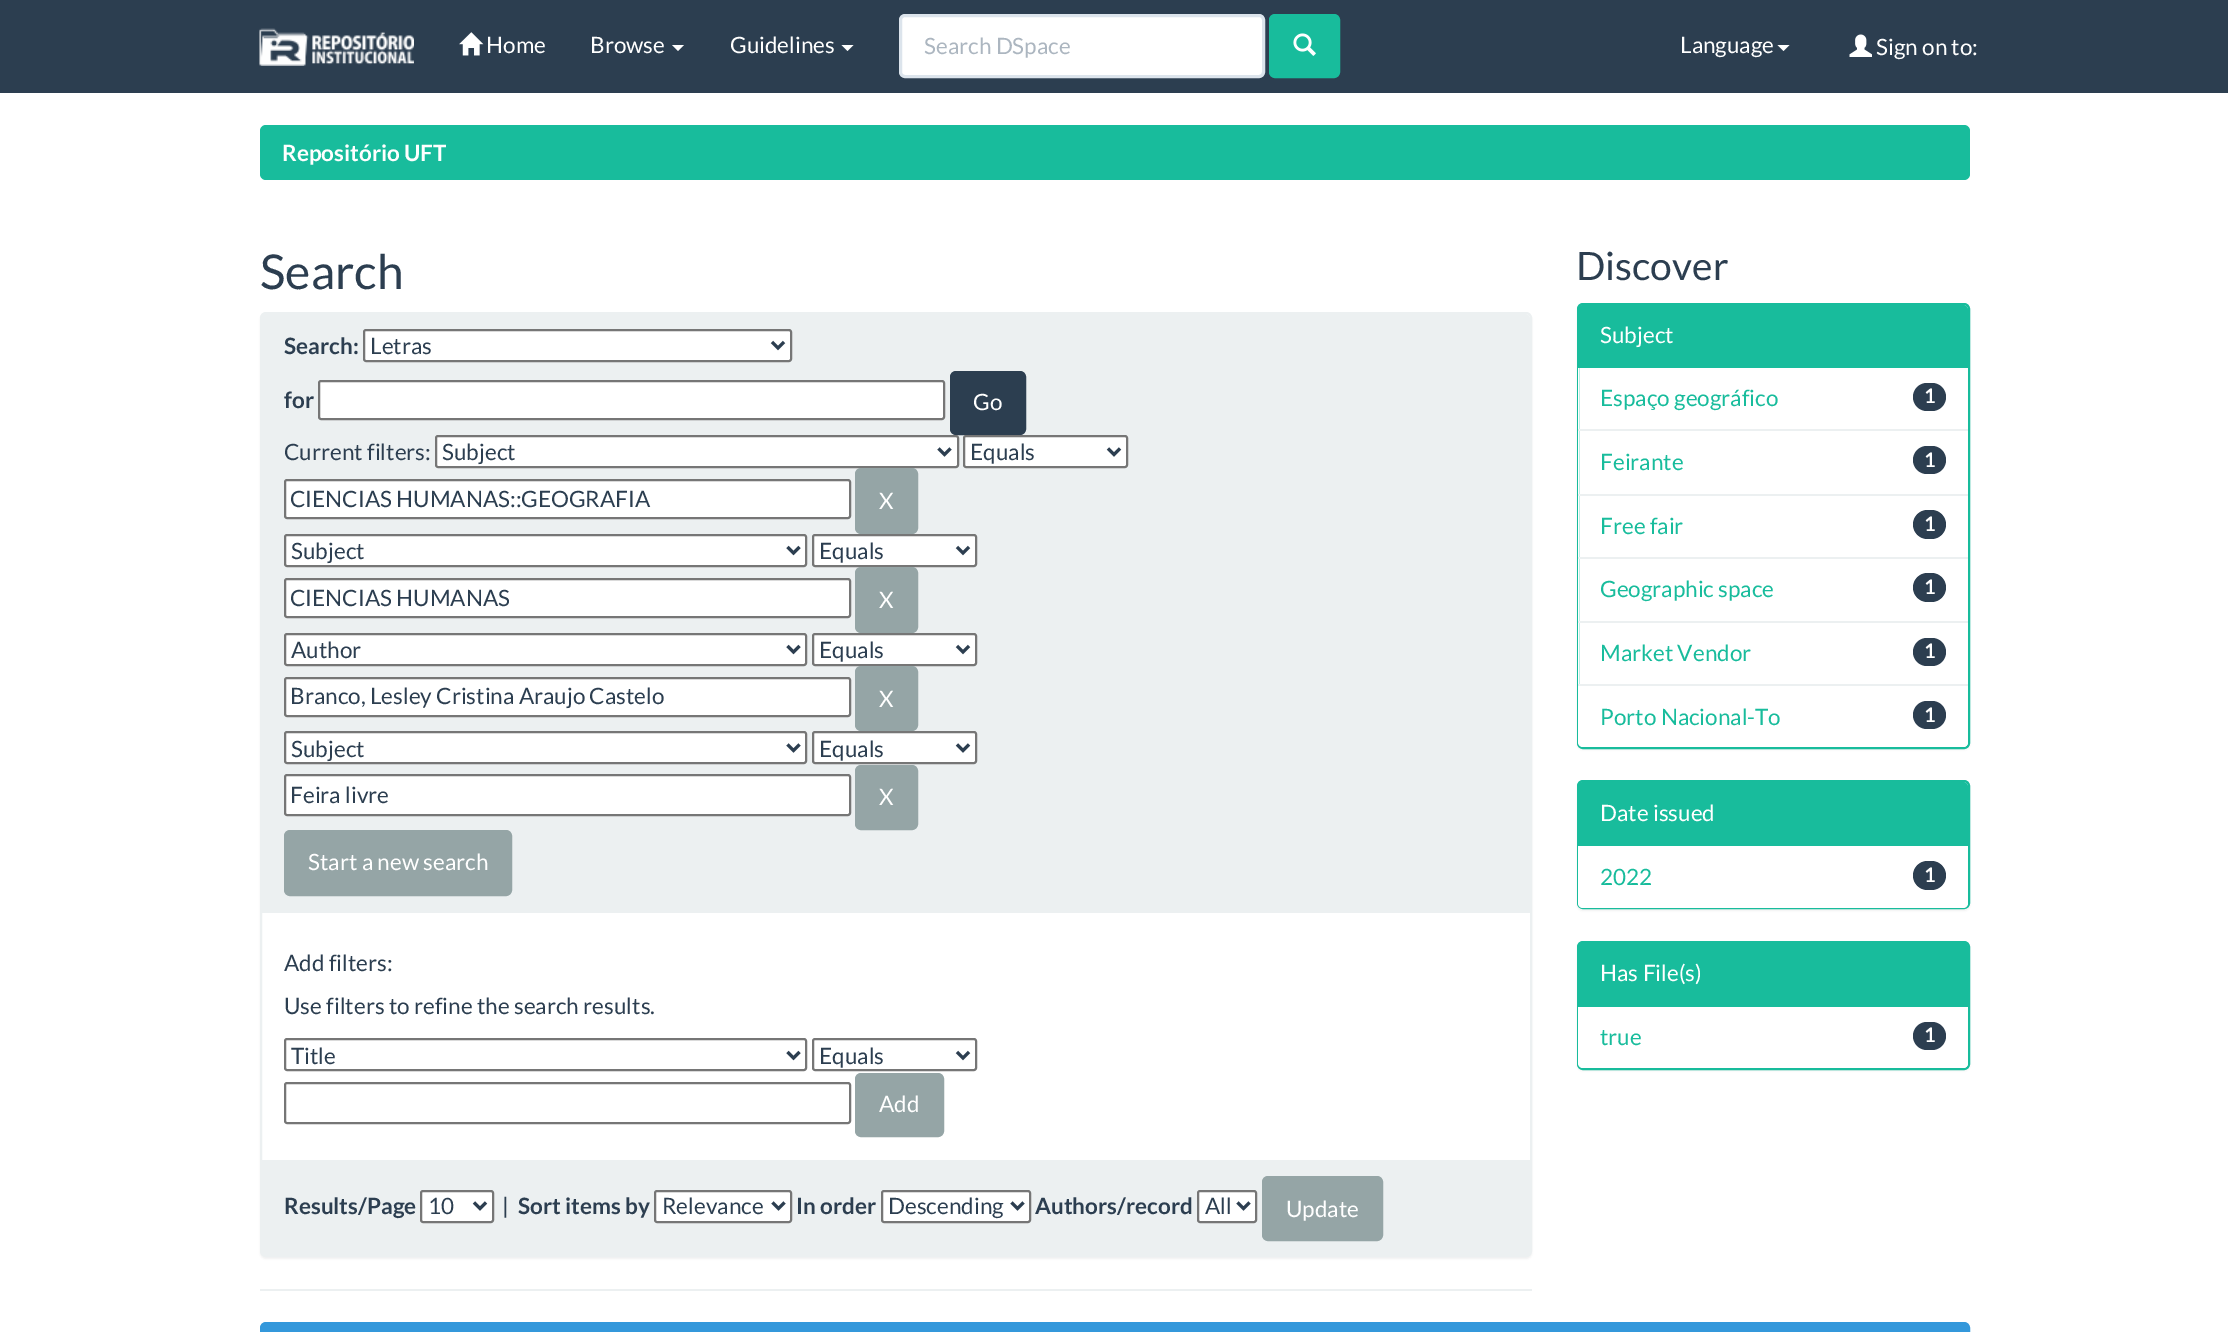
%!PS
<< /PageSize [2228 1332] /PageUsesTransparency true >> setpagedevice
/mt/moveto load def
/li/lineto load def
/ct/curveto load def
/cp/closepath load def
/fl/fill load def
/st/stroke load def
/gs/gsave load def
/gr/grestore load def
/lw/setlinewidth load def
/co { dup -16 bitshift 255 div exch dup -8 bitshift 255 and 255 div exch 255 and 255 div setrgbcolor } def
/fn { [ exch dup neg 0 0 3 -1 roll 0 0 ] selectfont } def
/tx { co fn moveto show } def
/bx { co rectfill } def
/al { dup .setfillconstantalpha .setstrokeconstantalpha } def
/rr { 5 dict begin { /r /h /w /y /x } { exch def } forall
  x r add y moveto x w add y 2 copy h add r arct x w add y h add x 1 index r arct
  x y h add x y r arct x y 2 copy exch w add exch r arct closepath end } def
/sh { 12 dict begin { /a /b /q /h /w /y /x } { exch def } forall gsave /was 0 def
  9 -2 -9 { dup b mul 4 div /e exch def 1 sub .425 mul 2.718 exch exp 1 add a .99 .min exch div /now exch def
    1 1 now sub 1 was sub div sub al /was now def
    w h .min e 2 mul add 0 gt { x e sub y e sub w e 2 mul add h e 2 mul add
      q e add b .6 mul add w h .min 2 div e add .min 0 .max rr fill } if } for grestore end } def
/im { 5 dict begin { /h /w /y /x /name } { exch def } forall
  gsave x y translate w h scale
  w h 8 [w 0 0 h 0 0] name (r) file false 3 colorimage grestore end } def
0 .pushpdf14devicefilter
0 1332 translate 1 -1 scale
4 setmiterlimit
0 0 2228 1332 16#FFFFFF bx
0 0 2228 93 16#2C3E50 bx
(media/1.raw) 259 28 155 38 im
(media/2.raw) 459 32 25 24 im
16#FFFFFF co
672 45 mt 684 45 li 678 51 li cp fl
841.5 45 mt 853.5 45 li 847.5 51 li cp fl
900.5 15.5 363 61 4.5 rr gs fl gr
16#DCE4EC co
3 lw
st
16#18BC9C co
1270 15 69 62 5 rr gs fl gr
2 lw
st
(media/3.raw) 1293 33 23 23 im
16#FFFFFF co
1777.5 45 mt 1789.5 45 li 1783.5 51 li cp fl
(media/4.raw) 1849 34 23 23 im
16#18BC9C co
260 125 1710 55 6 rr fl
16#000000 co
260 314 1272 945 6 1 .05 sh
16#FFFFFF co
261 313 1270 943 5 rr gs fl gr
16#ECF0F1 co
st
266 314 mt 1525 314 li 1528 314 1530 316 1530 319 ct 1530 912 li 261 912 li 261 319 li 261 316 263 314 266 314 ct cp fl
261 912 1269 1 16#ECF0F1 bx
16#FFFFFF co
364 330 427 31 2 rr gs fl gr
16#767676 co
st
16#2C3E50 co
3 lw
772 342 mt 778 348 li 784 342 li st
16#FFFFFF co
319 381 625 38 2 rr gs fl gr
16#767676 co
2 lw
st
16#2C3E50 co
951 372 74 62 5 rr gs fl gr
st
16#FFFFFF co
436 436 522 31 2 rr gs fl gr
16#767676 co
st
16#2C3E50 co
3 lw
938.5 448.5 mt 944.5 454.5 li 950.5 448.5 li st
16#FFFFFF co
964 436 163 31 2 rr gs fl gr
16#767676 co
2 lw
st
16#2C3E50 co
3 lw
1108 448.5 mt 1114 454.5 li 1120 448.5 li st
16#FFFFFF co
285 480 565 38 2 rr gs fl gr
16#767676 co
2 lw
st
16#95A5A6 co
856 469 61 64 5 rr gs fl gr
st
16#FFFFFF co
285 535 521 31 2 rr gs fl gr
16#767676 co
st
16#2C3E50 co
3 lw
787.5 547 mt 793.5 553 li 799.5 547 li st
16#FFFFFF co
813 535 163 31 2 rr gs fl gr
16#767676 co
2 lw
st
16#2C3E50 co
3 lw
957 547 mt 963 553 li 969 547 li st
16#FFFFFF co
285 579 565 38 2 rr gs fl gr
16#767676 co
2 lw
st
16#95A5A6 co
856 568 61 64 5 rr gs fl gr
st
16#FFFFFF co
285 634 521 31 2 rr gs fl gr
16#767676 co
st
16#2C3E50 co
3 lw
787.5 646 mt 793.5 652 li 799.5 646 li st
16#FFFFFF co
813 634 163 31 2 rr gs fl gr
16#767676 co
2 lw
st
16#2C3E50 co
3 lw
957 646 mt 963 652 li 969 646 li st
16#FFFFFF co
285 678 565 38 2 rr gs fl gr
16#767676 co
2 lw
st
16#95A5A6 co
856 667 61 63 5 rr gs fl gr
st
16#FFFFFF co
285 732 521 31 2 rr gs fl gr
16#767676 co
st
16#2C3E50 co
3 lw
787.5 744.5 mt 793.5 750.5 li 799.5 744.5 li st
16#FFFFFF co
813 732 163 31 2 rr gs fl gr
16#767676 co
2 lw
st
16#2C3E50 co
3 lw
957 744.5 mt 963 750.5 li 969 744.5 li st
16#FFFFFF co
285 775 565 40 2 rr gs fl gr
16#767676 co
2 lw
st
16#95A5A6 co
856 766 61 63 5 rr gs fl gr
st
285 831 226 64 5 rr gs fl gr
st
16#767676 co
285 1039 521 31 2 rr st
16#2C3E50 co
3 lw
787.5 1052 mt 793.5 1058 li 799.5 1052 li st
16#767676 co
2 lw
813 1039 163 31 2 rr st
16#2C3E50 co
3 lw
957 1052 mt 963 1058 li 969 1052 li st
16#767676 co
2 lw
285 1083 565 40 2 rr st
16#95A5A6 co
856 1074 87 62 5 rr gs fl gr
st
16#ECF0F1 co
261 1160 mt 1530 1160 li 1530 1251 li 1530 1254 1528 1256 1525 1256 ct 266 1256 li 263 1256 261 1254 261 1251 ct cp fl
16#FFFFFF co
421 1191 72 31 2 rr gs fl gr
16#767676 co
st
16#2C3E50 co
3 lw
474 1202.5 mt 480 1208.5 li 486 1202.5 li st
16#FFFFFF co
655 1191 136 31 2 rr gs fl gr
16#767676 co
2 lw
st
16#2C3E50 co
3 lw
772.5 1202.5 mt 778.5 1208.5 li 784.5 1202.5 li st
16#FFFFFF co
882 1191 148 31 2 rr gs fl gr
16#767676 co
2 lw
st
16#2C3E50 co
3 lw
1011.5 1202.5 mt 1017.5 1208.5 li 1023.5 1202.5 li st
16#FFFFFF co
1198 1191 58 31 2 rr gs fl gr
16#767676 co
2 lw
st
16#2C3E50 co
3 lw
1237.5 1202.5 mt 1243.5 1208.5 li 1249.5 1202.5 li st
16#95A5A6 co
1263 1177 119 63 5 rr gs fl gr
2 lw
st
260 1289 1272 2 16#ECF0F1 bx
16#3498DB co
261 1323 1708 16 5 rr gs fl gr
st
16#000000 co
1577 305 393 445 6 1 .05 sh
16#FFFFFF co
1578 304 391 444 5 rr gs fl gr
16#18BC9C co
st
1583 305 mt 1963 305 li 1966 305 1968 307 1968 310 ct 1968 368 li 1578 368 li 1578 310 li 1578 307 1580 305 1583 305 ct cp fl
1578 368 1 61 16#FFFFFF bx
1578 429 390 2 16#ECF0F1 bx
16#2C3E50 co
1913 383 33 28 14 rr fl
1578 431 1 63 16#FFFFFF bx
16#2C3E50 co
1913 446 33 28 14 rr fl
1578 496 1 61 16#FFFFFF bx
1578 494 390 2 16#ECF0F1 bx
16#2C3E50 co
1913 510 33 29 14.5 rr fl
1578 559 1 62 16#FFFFFF bx
1578 557 390 2 16#ECF0F1 bx
1578 621 390 2 16#ECF0F1 bx
16#2C3E50 co
1913 573 33 29 14.5 rr fl
1578 623 1 61 16#FFFFFF bx
16#2C3E50 co
1913 638 33 28 14 rr fl
16#FFFFFF co
1578 684 mt 1968 684 li 1968 742 li 1968 745 1966 747 1963 747 ct 1583 747 li 1580 747 1578 745 1578 742 ct cp fl
1578 684 390 2 16#ECF0F1 bx
16#2C3E50 co
1913 701 33 28 14 rr fl
16#000000 co
1577 782 393 129 6 1 .05 sh
16#FFFFFF co
1578 781 391 127 5 rr gs fl gr
16#18BC9C co
st
1583 782 mt 1963 782 li 1966 782 1968 784 1968 787 ct 1968 846 li 1578 846 li 1578 787 li 1578 784 1580 782 1583 782 ct cp fl
16#FFFFFF co
1578 846 mt 1968 846 li 1968 903 li 1968 906 1966 908 1963 908 ct 1583 908 li 1580 908 1578 906 1578 903 ct cp fl
16#2C3E50 co
1913 861 33 29 14.5 rr fl
16#000000 co
1577 942 393 129 6 1 .05 sh
16#FFFFFF co
1578 942 391 127 5 rr gs fl gr
16#18BC9C co
st
1583 942 mt 1963 942 li 1966 942 1968 944 1968 947 ct 1968 1007 li 1578 1007 li 1578 947 li 1578 944 1580 942 1583 942 ct cp fl
16#FFFFFF co
1578 1007 mt 1968 1007 li 1968 1063 li 1968 1066 1966 1068 1963 1068 ct 1583 1068 li 1580 1068 1578 1066 1578 1063 ct cp fl
16#2C3E50 co
1913 1022 33 28 14 rr fl
(Home) 486 53 /Lato-Regular 22.5 16#FFFFFF tx
(Browse) 590 53 /Lato-Regular 22.5 16#FFFFFF tx
(Guidelines) 730 53 /Lato-Regular 22.5 16#FFFFFF tx
(Search DSpace) 924 54 /Lato-Regular 22.5 16#ACB6C0 tx
(Language) 1680 53 /Lato-Regular 22.5 16#FFFFFF tx
(Sign on to:) 1876 55 /Lato-Regular 22.5 16#FFFFFF tx
(Repositório UFT) 282 161 /Lato-Bold 22.5 16#FFFFFF tx
(Search) 260 289 /Lato-Regular 48 16#2C3E50 tx
(Search:) 284 354 /Lato-Bold 22.5 16#2C3E50 tx
(Letras) 370 354 /Lato-Regular 22.5 16#2C3E50 tx
(for) 284 408 /Lato-Bold 22.5 16#2C3E50 tx
(Go) 973 410 /Lato-Regular 22.5 16#FFFFFF tx
(Current filters:) 284 460 /Lato-Regular 22.5 16#2C3E50 tx
(Subject) 442 460 /Lato-Regular 22.5 16#2C3E50 tx
(Equals) 970 460 /Lato-Regular 22.5 16#2C3E50 tx
(CIENCIAS HUMANAS::GEOGRAFIA) 290 507 /Lato-Regular 22.5 16#2C3E50 tx
(X) 879 509 /Lato-Regular 22.5 16#FFFFFF tx
(Subject) 291 559 /Lato-Regular 22.5 16#2C3E50 tx
(Equals) 819 559 /Lato-Regular 22.5 16#2C3E50 tx
(CIENCIAS HUMANAS) 290 606 /Lato-Regular 22.5 16#2C3E50 tx
(X) 879 608 /Lato-Regular 22.5 16#FFFFFF tx
(Author) 291 658 /Lato-Regular 22.5 16#2C3E50 tx
(Equals) 819 658 /Lato-Regular 22.5 16#2C3E50 tx
(Branco, Lesley Cristina Araujo Castelo) 290 704 /Lato-Regular 22.5 16#2C3E50 tx
(X) 879 707 /Lato-Regular 22.5 16#FFFFFF tx
(Subject) 291 757 /Lato-Regular 22.5 16#2C3E50 tx
(Equals) 819 757 /Lato-Regular 22.5 16#2C3E50 tx
(Feira livre) 290 803 /Lato-Regular 22.5 16#2C3E50 tx
(X) 879 805 /Lato-Regular 22.5 16#FFFFFF tx
(Start a new search) 308 870 /Lato-Regular 22.5 16#FFFFFF tx
(Add filters:) 284 971 /Lato-Regular 22.5 16#2C3E50 tx
(Use filters to refine the search results.) 284 1014 /Lato-Regular 22.5 16#2C3E50 tx
(Title) 291 1064 /Lato-Regular 22.5 16#2C3E50 tx
(Equals) 819 1064 /Lato-Regular 22.5 16#2C3E50 tx
(Add) 879 1112 /Lato-Regular 22.5 16#FFFFFF tx
(Results/Page) 284 1214 /Lato-Bold 22.5 16#2C3E50 tx
(10) 428 1214 /Lato-Regular 22.5 16#2C3E50 tx
(|) 502 1214 /Lato-Regular 22.5 16#2C3E50 tx
(Sort items by) 518 1214 /Lato-Bold 22.5 16#2C3E50 tx
(Relevance) 662 1214 /Lato-Regular 22.5 16#2C3E50 tx
(In order) 796 1214 /Lato-Bold 22.5 16#2C3E50 tx
(Descending) 888 1214 /Lato-Regular 22.5 16#2C3E50 tx
(Authors/record) 1035 1214 /Lato-Bold 22.5 16#2C3E50 tx
(All) 1205 1214 /Lato-Regular 22.5 16#2C3E50 tx
(Update) 1286 1217 /Lato-Regular 22.5 16#FFFFFF tx
(Discover) 1576 280 /Lato-Regular 39 16#2C3E50 tx
(Subject) 1600 343 /Lato-Regular 22.5 16#FFFFFF tx
(Espaço geográfico) 1600 406 /Lato-Regular 22.5 16#18BC9C tx
(1) 1924 403 /Lato-Bold 20 16#FFFFFF tx
(Feirante) 1600 470 /Lato-Regular 22.5 16#18BC9C tx
(1) 1924 467 /Lato-Bold 20 16#FFFFFF tx
(Free fair) 1600 534 /Lato-Regular 22.5 16#18BC9C tx
(1) 1924 531 /Lato-Bold 20 16#FFFFFF tx
(Geographic space) 1600 597 /Lato-Regular 22.5 16#18BC9C tx
(1) 1924 594 /Lato-Bold 20 16#FFFFFF tx
(Market Vendor) 1600 661 /Lato-Regular 22.5 16#18BC9C tx
(1) 1924 658 /Lato-Bold 20 16#FFFFFF tx
(Porto Nacional-To) 1600 725 /Lato-Regular 22.5 16#18BC9C tx
(1) 1924 722 /Lato-Bold 20 16#FFFFFF tx
(Date issued) 1600 821 /Lato-Regular 22.5 16#FFFFFF tx
(2022) 1600 885 /Lato-Regular 22.5 16#18BC9C tx
(1) 1924 882 /Lato-Bold 20 16#FFFFFF tx
(Has File\(s\)) 1600 981 /Lato-Regular 22.5 16#FFFFFF tx
(true) 1600 1045 /Lato-Regular 22.5 16#18BC9C tx
(1) 1924 1042 /Lato-Bold 20 16#FFFFFF tx
.poppdf14devicefilter showpage
